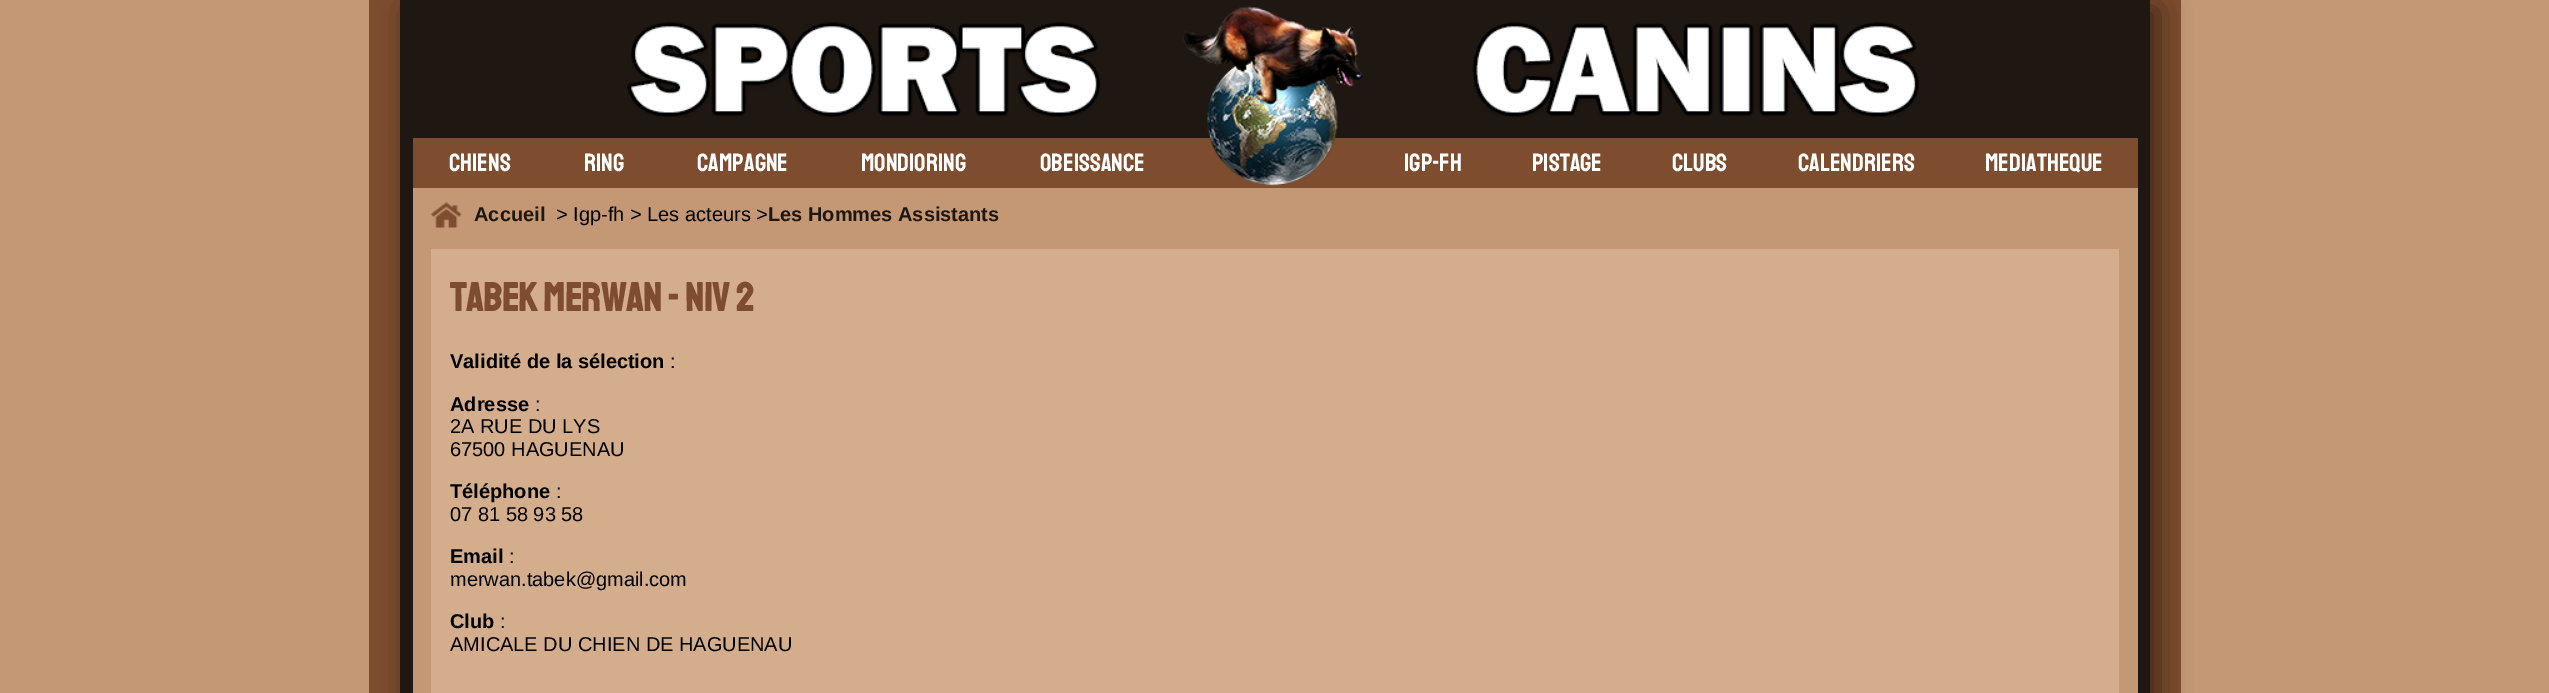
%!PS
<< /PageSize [2549 693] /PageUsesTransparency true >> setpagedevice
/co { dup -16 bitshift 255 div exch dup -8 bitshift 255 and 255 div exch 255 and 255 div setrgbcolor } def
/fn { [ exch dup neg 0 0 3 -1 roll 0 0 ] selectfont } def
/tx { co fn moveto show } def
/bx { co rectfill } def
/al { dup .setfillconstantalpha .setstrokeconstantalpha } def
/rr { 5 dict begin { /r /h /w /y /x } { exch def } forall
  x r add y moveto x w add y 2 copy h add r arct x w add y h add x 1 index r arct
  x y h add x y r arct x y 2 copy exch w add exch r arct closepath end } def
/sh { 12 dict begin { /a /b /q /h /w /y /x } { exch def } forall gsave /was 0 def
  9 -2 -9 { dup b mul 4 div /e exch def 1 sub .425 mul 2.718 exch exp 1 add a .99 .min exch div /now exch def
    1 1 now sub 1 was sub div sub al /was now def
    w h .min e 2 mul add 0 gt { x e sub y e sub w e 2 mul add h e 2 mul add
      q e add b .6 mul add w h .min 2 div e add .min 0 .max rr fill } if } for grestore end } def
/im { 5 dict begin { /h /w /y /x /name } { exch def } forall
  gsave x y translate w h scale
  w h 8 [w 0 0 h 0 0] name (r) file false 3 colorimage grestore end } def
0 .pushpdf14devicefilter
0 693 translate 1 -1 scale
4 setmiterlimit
0 0 2549 693 16#C49875 bx
369 0 1812 693 16#7E4D2F bx
16#000000 co
408 8 1750 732 0 15.5 .5 sh
400 0 1750 693 16#1F1712 bx
(media/1.raw) 627 22 1292 95 im
413 138 1725 50 16#7E4D2F bx
(media/2.raw) 1182 6 181 180 im
413 188 1725 505 16#C49875 bx
(media/3.raw) 431 202 31 26 im
431 249 1688 444 16#D4AD8C bx
(CHIENS) 449 171 /Staatliches-Regular 25 16#FFFFFF tx
(RING) 584 171 /Staatliches-Regular 25 16#FFFFFF tx
(CAMPAGNE) 697 171 /Staatliches-Regular 25 16#FFFFFF tx
(MONDIORING) 861 171 /Staatliches-Regular 25 16#FFFFFF tx
(OBEISSANCE) 1040 171 /Staatliches-Regular 25 16#FFFFFF tx
(IGP-FH) 1404 171 /Staatliches-Regular 25 16#FFFFFF tx
(PISTAGE) 1532 171 /Staatliches-Regular 25 16#FFFFFF tx
(CLUBS) 1672 171 /Staatliches-Regular 25 16#FFFFFF tx
(CALENDRIERS) 1798 171 /Staatliches-Regular 25 16#FFFFFF tx
(MEDIATHEQUE) 1985 171 /Staatliches-Regular 25 16#FFFFFF tx
(Accueil) 474 221 /LiberationSans-Bold 20 16#1F1712 tx
(> Igp-fh > Les acteurs >) 556 221 /LiberationSans-Regular 20 16#000000 tx
(Les Hommes Assistants) 768 221 /LiberationSans-Bold 20 16#1F1712 tx
(TABEK MERWAN - Niv 2) 450 311 /Staatliches-Bold 40 16#7E4D2F tx
(Validité de la sélection) 450 368 /LiberationSans-Bold 20 16#000000 tx
(:) 670 368 /LiberationSans-Regular 20 16#000000 tx
(Adresse) 450 411 /LiberationSans-Bold 20 16#000000 tx
(:) 535 411 /LiberationSans-Regular 20 16#000000 tx
(2A RUE DU LYS) 450 433 /LiberationSans-Regular 20 16#000000 tx
(67500 HAGUENAU) 450 456 /LiberationSans-Regular 20 16#000000 tx
(Téléphone) 450 498 /LiberationSans-Bold 20 16#000000 tx
(:) 556 498 /LiberationSans-Regular 20 16#000000 tx
(07 81 58 93 58) 450 521 /LiberationSans-Regular 20 16#000000 tx
(Email) 450 563 /LiberationSans-Bold 20 16#000000 tx
(:) 509 563 /LiberationSans-Regular 20 16#000000 tx
(merwan.tabek@gmail.com) 450 586 /LiberationSans-Regular 20 16#000000 tx
(Club) 450 628 /LiberationSans-Bold 20 16#000000 tx
(:) 500 628 /LiberationSans-Regular 20 16#000000 tx
(AMICALE DU CHIEN DE HAGUENAU) 450 651 /LiberationSans-Regular 20 16#000000 tx
.poppdf14devicefilter showpage
